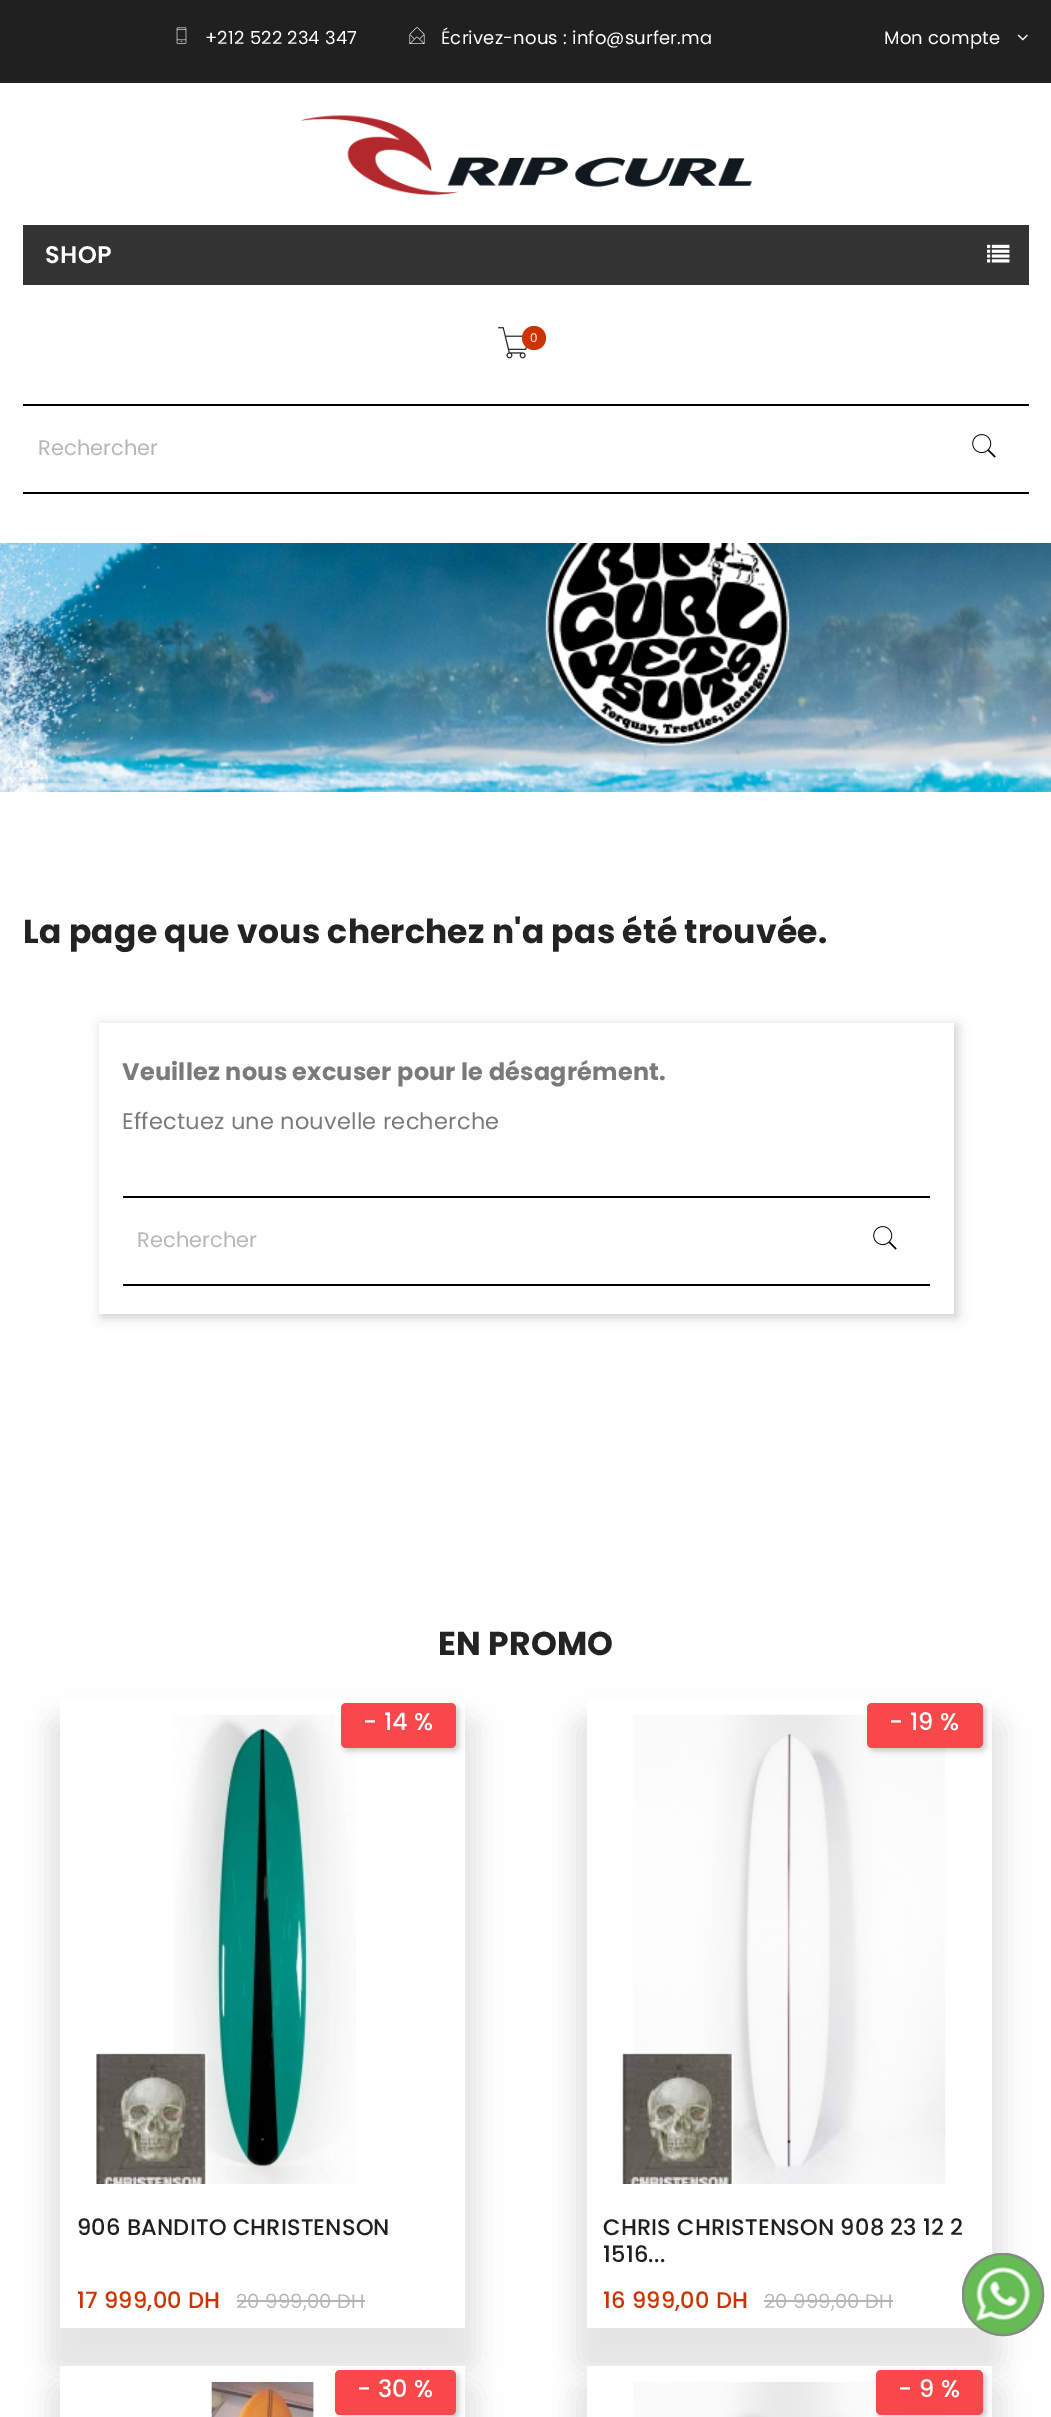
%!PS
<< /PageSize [1051 2417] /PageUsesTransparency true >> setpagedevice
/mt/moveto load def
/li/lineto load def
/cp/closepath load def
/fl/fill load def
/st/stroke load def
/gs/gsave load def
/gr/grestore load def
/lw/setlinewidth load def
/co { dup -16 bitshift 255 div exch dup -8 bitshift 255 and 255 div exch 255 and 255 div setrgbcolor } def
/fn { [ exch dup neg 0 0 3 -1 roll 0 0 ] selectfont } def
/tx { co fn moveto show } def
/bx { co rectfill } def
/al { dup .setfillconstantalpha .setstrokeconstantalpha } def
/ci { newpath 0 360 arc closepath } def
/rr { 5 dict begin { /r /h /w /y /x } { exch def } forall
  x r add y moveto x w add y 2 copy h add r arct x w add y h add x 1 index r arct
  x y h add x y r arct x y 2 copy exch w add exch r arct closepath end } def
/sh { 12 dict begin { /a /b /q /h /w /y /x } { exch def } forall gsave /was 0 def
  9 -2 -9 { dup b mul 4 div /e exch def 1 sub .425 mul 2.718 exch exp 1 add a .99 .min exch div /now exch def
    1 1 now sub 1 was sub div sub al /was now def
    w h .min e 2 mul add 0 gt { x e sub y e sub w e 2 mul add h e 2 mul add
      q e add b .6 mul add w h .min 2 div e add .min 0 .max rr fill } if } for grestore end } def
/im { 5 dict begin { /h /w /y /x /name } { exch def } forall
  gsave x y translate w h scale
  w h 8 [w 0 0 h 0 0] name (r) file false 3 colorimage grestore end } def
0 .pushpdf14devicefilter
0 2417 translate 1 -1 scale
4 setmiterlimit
0 0 1051 2417 16#FFFFFF bx
0 0 1051 83 16#202020 bx
(media/1.raw) 176 27 11 17 im
(media/2.raw) 409 27 16 17 im
(media/3.raw) 1017 34 11 7 im
(media/4.raw) 301 115 451 80 im
23 225 1006 60 16#333333 bx
(media/5.raw) 987 244 23 19 im
(media/6.raw) 498 327 29 32 im
16#CD3301 co
534 338 12 ci fl
23 404 1006 2 16#000000 bx
23 492 1006 2 16#000000 bx
(media/7.raw) 972 434 24 24 im
(media/8.raw) 0 543 1051 249 im
gs
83 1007 mt 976 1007 li 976 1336 li 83 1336 li cp 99 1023 mt 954 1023 li 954 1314 li 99 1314 li cp eoclip newpath
102 1026 855 291 0 6 .2 sh
gr
123 1196 807 2 16#000000 bx
123 1284 807 2 16#000000 bx
(media/7.raw) 873 1226 24 24 im
47 1715 432 657 15 12 .1 sh
16#FFFFFF co
60 1698 405 630 1.5 rr fl
(media/10.raw) 173 1714 183 470 im
16#000000 co
344 1706 115 45 5 3 .2 sh
16#F8484A co
341 1703 115 45 5 rr fl
(media/9.raw) 96 2053 111 131 im
16#000000 co
573 1715 432 657 15 12 .1 sh
16#FFFFFF co
587 1698 405 630 1.5 rr fl
(media/11.raw) 633 1714 313 470 im
16#000000 co
870 1706 116 45 5 3 .2 sh
16#F8484A co
867 1703 116 45 5 rr fl
(media/12.raw) 622 2053 112 131 im
16#000000 co
47 2382 432 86 15 12 .1 sh
16#FFFFFF co
60 2366 405 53 1.5 rr fl
(media/13.raw) 208 2382 107 35 im
16#000000 co
338 2373 121 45 5 3 .2 sh
16#F8484A co
335 2370 121 45 5 rr fl
16#000000 co
573 2382 432 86 15 12 .1 sh
16#FFFFFF co
587 2366 405 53 1.5 rr fl
(media/14.raw) 633 2382 312 35 im
16#000000 co
879 2373 107 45 5 3 .2 sh
16#F8484A co
876 2370 107 45 5 rr fl
16#65BC54 co
962 2253 82 83 41 rr fl
(media/15.raw) 968 2260 69 68 im
16#888888 co
2 lw
963 2254 80 81 40 rr st
/Poppins-Regular 18 fn
16#FFFFFF co
205 44 mt .2 0 (+212 522 234 347) ashow
441 44 mt .2 0 (Écrivez-nous : info@surfer.ma) ashow
884 44 mt .2 0 (Mon compte) ashow
/Poppins-SemiBold 24 fn
45 263 mt .5 0 (SHOP) ashow
/Poppins-Regular 12 fn
530 342 mt .2 0 (0) ashow
(Rechercher) 38 455 /Poppins-Regular 21 16#B7B7B7 tx
/Poppins-Bold 33 fn
16#232323 co
23 943 mt .2 0 (La page que vous cherchez n'a pas été trouvée.) ashow
/Poppins-Bold 24 fn
16#7A7A7A co
122 1080 mt .2 0 (Veuillez nous excuser pour le désagrément.) ashow
/Poppins-Regular 22.5 fn
122 1129 mt .2 0 (Effectuez une nouvelle recherche) ashow
(Rechercher) 137 1247 /Poppins-Regular 21 16#B7B7B7 tx
/Poppins-Bold 33 fn
16#232323 co
438 1655 mt .2 0 (EN PROMO) ashow
/Poppins-Medium 24 fn
16#FFFFFF co
363 1730 mt .2 0 (- 14 %) ashow
/Poppins-Medium 22.5 fn
16#CD3301 co
77 2308 mt .2 0 (17 999,00 DH) ashow
/Poppins-Regular 19.5 fn
16#B7B7B7 co
236 2308 mt .2 0 (20 999,00 DH) ashow
237 2300 128 2 16#B3B3B3 bx
/Poppins-Medium 22.5 fn
16#1D1F21 co
77 2235 mt .2 0 (906 BANDITO CHRISTENSON) ashow
/Poppins-Medium 24 fn
16#FFFFFF co
889 1730 mt .2 0 (- 19 %) ashow
/Poppins-Medium 22.5 fn
16#CD3301 co
603 2308 mt .2 0 (16 999,00 DH) ashow
/Poppins-Regular 19.5 fn
16#B7B7B7 co
764 2308 mt .2 0 (20 999,00 DH) ashow
764 2300 129 2 16#B3B3B3 bx
/Poppins-Medium 22.5 fn
16#1D1F21 co
603 2235 mt .2 0 (CHRIS CHRISTENSON 908 23 12 2) ashow
603 2262 mt .2 0 (1516...) ashow
/Poppins-Medium 24 fn
16#FFFFFF co
357 2397 mt .2 0 (- 30 %) ashow
898 2397 mt .2 0 (- 9 %) ashow
.poppdf14devicefilter showpage
